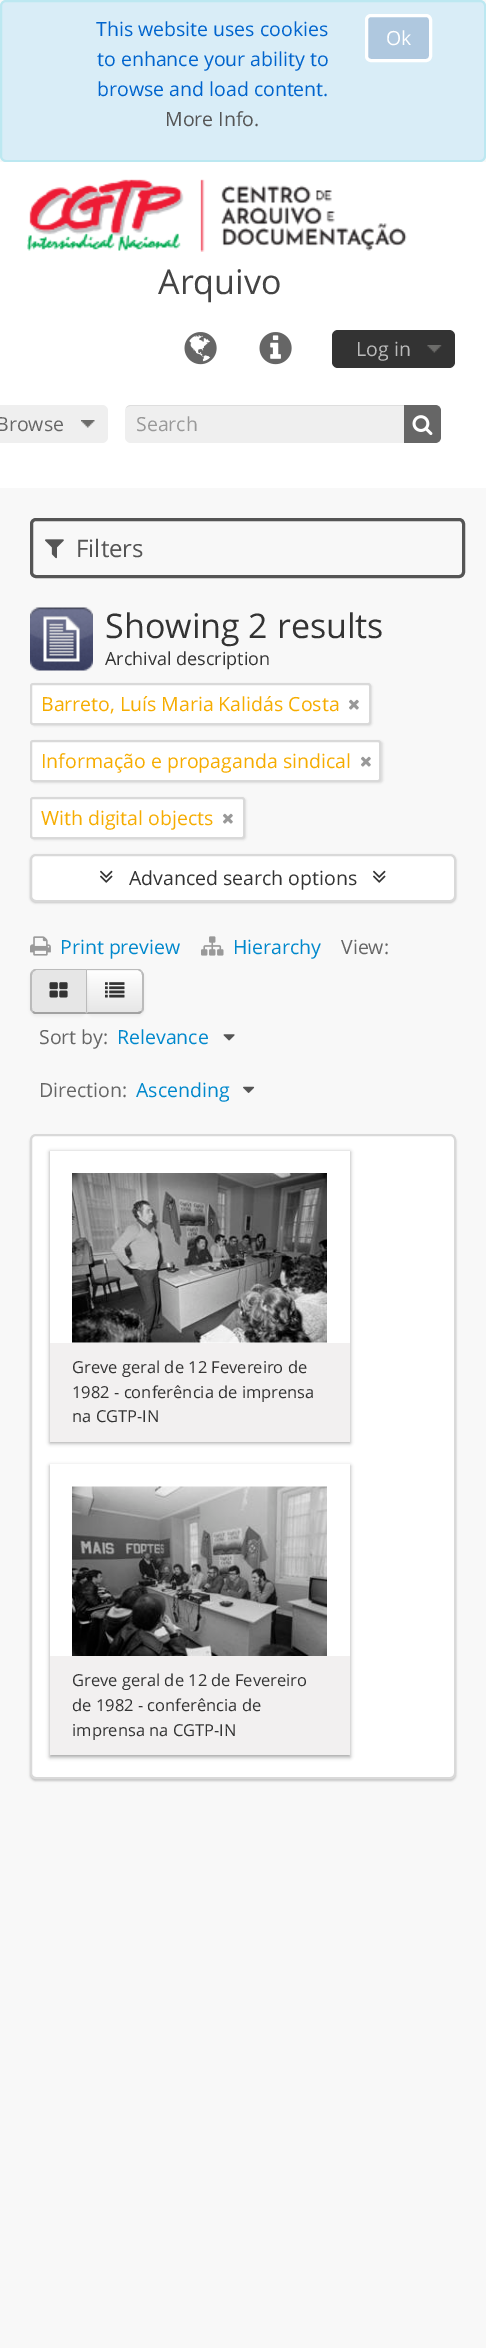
%!PS
<< /PageSize [486 2348] /PageUsesTransparency true >> setpagedevice
/mt/moveto load def
/li/lineto load def
/ct/curveto load def
/cp/closepath load def
/fl/fill load def
/st/stroke load def
/gs/gsave load def
/gr/grestore load def
/lw/setlinewidth load def
/co { dup -16 bitshift 255 div exch dup -8 bitshift 255 and 255 div exch 255 and 255 div setrgbcolor } def
/fn { [ exch dup neg 0 0 3 -1 roll 0 0 ] selectfont } def
/tx { co fn moveto show } def
/bx { co rectfill } def
/al { dup .setfillconstantalpha .setstrokeconstantalpha } def
/rr { 5 dict begin { /r /h /w /y /x } { exch def } forall
  x r add y moveto x w add y 2 copy h add r arct x w add y h add x 1 index r arct
  x y h add x y r arct x y 2 copy exch w add exch r arct closepath end } def
/sh { 12 dict begin { /a /b /q /h /w /y /x } { exch def } forall gsave /was 0 def
  9 -2 -9 { dup b mul 4 div /e exch def 1 sub .425 mul 2.718 exch exp 1 add a .99 .min exch div /now exch def
    1 1 now sub 1 was sub div sub al /was now def
    w h .min e 2 mul add 0 gt { x e sub y e sub w e 2 mul add h e 2 mul add
      q e add b .6 mul add w h .min 2 div e add .min 0 .max rr fill } if } for grestore end } def
/im { 5 dict begin { /h /w /y /x /name } { exch def } forall
  gsave x y translate w h scale
  w h 8 [w 0 0 h 0 0] name (r) file false 3 colorimage grestore end } def
0 .pushpdf14devicefilter
0 2348 translate 1 -1 scale
4 setmiterlimit
0 0 486 2348 16#F8F8F8 bx
16#D9EDF7 co
1 1 484 160 5 rr gs fl gr
16#BCE8F1 co
2 lw
st
16#AFC8DF co
366.5 15.5 64 45 4.5 rr gs fl gr
16#FFFFFF co
3 lw
st
0 162 486 326 16#FFFFFF bx
(media/1.raw) 27 179 380 73 im
(media/2.raw) 184 332 33 33 im
(media/3.raw) 259 332 33 33 im
16#333333 co
332 330 123 38 6 rr fl
(media/4.raw) 427 345 15 8 im
16#EFEFEF co
-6 405 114 38 6 rr fl
(media/5.raw) 81 420 14 8 im
125 405 316 38 6 rr fl
0.07 al
16#000000 co
130 406 mt 435 406 li 438 406 441 409 441 412 ct 441 411 li 441 408 438 405 435 405 ct 131 405 li 129 405 127 406 126 408 ct 127 407 129 406 130 406 ct cp fl
1 al
16#666666 co
404 405 mt 435 405 li 438.5 405 441 407.5 441 411 ct 441 437 li 441 440.5 438.5 443 435 443 ct 404 443 li cp fl
(media/6.raw) 412 415 21 20 im
16#555555 co
31.5 519.5 432 57 4.5 rr st
(media/7.raw) 45 539 19 20 im
(media/8.raw) 30 607 63 64 im
16#000000 co
32 684 340 42 3 1 .1 sh
16#FFFFFF co
31 684 339 40 2 rr gs fl gr
16#D9D9D9 co
2 lw
st
(media/9.raw) 349 699 10 11 im
16#000000 co
32 741 351 42 3 1 .1 sh
16#FFFFFF co
31 741 349 40 2 rr gs fl gr
16#D9D9D9 co
st
(media/9.raw) 361 756 10 11 im
16#000000 co
32 798 214 42 3 1 .1 sh
16#FFFFFF co
31 798 213 40 2 rr gs fl gr
16#D9D9D9 co
st
(media/9.raw) 223 813 10 11 im
16#000000 co
30 855 426 48 6 1 .2 sh
16#FFFFFF co
31 855 424 46 5 rr gs fl gr
16#D9D9D9 co
st
(media/10.raw) 100 870 13 13 im
(media/10.raw) 373 870 13 13 im
(media/11.raw) 30 936 21 20 im
(media/12.raw) 201 936 23 20 im
16#000000 co
86 971 58 45 6 1.5 .05 sh
16#F5F5F5 co
86 969 mt 138 969 li 141.5 969 144 971.5 144 975 ct 144 1008 li 144 1011.5 141.5 1014 138 1014 ct 86 1014 li cp fl
gs
86 969 mt 138 969 li 141.5 969 144 971.5 144 975 ct 144 1008 li 144 1011.5 141.5 1014 138 1014 ct 86 1014 li cp clip newpath
gs 87 971 mt 144 971 li 144 1013 li 87 1013 li cp clip newpath
<< /ShadingType 2 /ColorSpace /DeviceRGB /Coords [115 971 115 1013] /Extend [true true] /Function << /FunctionType 2 /Domain [0 1] /C0 [1 1 1] /C1 [.902 .902 .902] /N 1 >> >> shfill gr
gr
0.2 al
16#FFFFFF co
87 972 mt 121 972 li 143 972 142 968 142 987 ct 142 1011 li 143 1010 143 1009 143 1008 ct 143 976 li 143 973 141 971 138 971 ct 87 971 li cp fl
1 al
16#BBBBBB co
86 969 mt 87 970 li 138 970 li 141 972 li 142 971 li 141 970 140 969 138 969 ct cp fl
144 1008 mt 144 975 li 144 974 143 972 142 971 ct 141 972 li 142 975 li 142 1008 li 142 1009 142 1010 141 1011 ct 142 1012 li 143 1011 144 1010 144 1008 ct cp fl
16#A2A2A2 co
86 1014 mt 138 1014 li 140 1014 141 1013 142 1012 ct 141 1011 li 138 1012 li 88 1012 li cp fl
16#BBBBBB co
86 970 mt 86 1014 li 88 1012 li 87 1012 li 87 970 li cp fl
16#000000 co
30 971 57 45 6 1.5 .05 sh
16#E6E6E6 co
36 969 mt 87 969 li 87 1014 li 36 1014 li 32.5 1014 30 1011.5 30 1008 ct 30 975 li 30 971.5 32.5 969 36 969 ct cp fl
16#BBBBBB co
36 969 mt 34 969 33 970 32 971 ct 33 972 li 36 970 li 86 970 li 87 969 li cp fl
87 969 mt 86 970 li 86 1012 li 85 1012 li 87 1014 li cp fl
16#A2A2A2 co
87 1014 mt 85 1012 li 35 1012 li 33 1011 li 32 1012 li 33 1013 34 1014 36 1014 ct cp fl
16#BBBBBB co
30 975 mt 30 1008 li 30 1010 31 1011 32 1012 ct 33 1011 li 32 1010 32 1009 32 1008 ct 32 975 li 33 972 li 32 971 li 31 972 30 974 30 975 ct cp fl
(media/13.raw) 49 982 19 16 im
(media/14.raw) 105 982 20 16 im
(media/15.raw) 223 1034 12 7 im
(media/16.raw) 243 1086 12 7 im
16#000000 co
30 1136 426 645 6 1 .2 sh
16#FFFFFF co
31 1135 424 643 5 rr gs fl gr
16#D9D9D9 co
st
16#191919 co
50 1152 300 291 0 2 .4 sh
50 1151 300 192 16#FFFFFF bx
(media/17.raw) 72 1173 255 170 im
50 1343 300 99 16#F2F0F0 bx
16#191919 co
50 1466 300 291 0 2 .4 sh
50 1464 300 192 16#FFFFFF bx
(media/18.raw) 72 1486 255 170 im
50 1656 300 99 16#F2F0F0 bx
(This website uses cookies) 96 36 /OpenSans-Regular 19.5 16#0064CD tx
(to enhance your ability to) 97 66 /OpenSans-Regular 19.5 16#0064CD tx
(browse and load content.) 97 96 /OpenSans-Regular 19.5 16#0064CD tx
(More Info.) 165 126 /OpenSans-Regular 19.5 16#555555 tx
(Ok) 386 45 /OpenSans-Regular 19.5 16#FFFFFF tx
(Arquivo) 158 294 /OpenSans-Regular 34 16#444444 tx
(Log in) 356 356 /OpenSans-Regular 19.5 16#BBBBBB tx
(Browse) -4 431 /OpenSans-Regular 19.5 16#666666 tx
(Search) 136 431 /OpenSans-Regular 19.5 16#999999 tx
(Filters) 76 557 /OpenSans-Regular 24 16#555555 tx
(Showing 2 results) 105 638 /OpenSans-Regular 34 16#333333 tx
(Archival description) 105 665 /OpenSans-Regular 18 16#333333 tx
(Barreto, Luís Maria Kalidás Costa) 41 711 /OpenSans-Regular 19.5 16#F6AC00 tx
(Informação e propaganda sindical) 41 768 /OpenSans-Regular 19.5 16#F6AC00 tx
(With digital objects) 41 825 /OpenSans-Regular 19.5 16#F6AC00 tx
(Advanced search options) 129 885 /OpenSans-Regular 19.5 16#333333 tx
(Print preview) 60 954 /OpenSans-Regular 19.5 16#0088CC tx
(Hierarchy) 233 954 /OpenSans-Regular 19.5 16#0088CC tx
(View:) 341 954 /OpenSans-Regular 19.5 16#666666 tx
(Sort by:) 39 1044 /OpenSans-Regular 19.5 16#666666 tx
(Relevance) 117 1044 /OpenSans-Regular 19.5 16#0088CC tx
(Direction:) 39 1097 /OpenSans-Regular 19.5 16#666666 tx
(Ascending) 136 1097 /OpenSans-Regular 19.5 16#0088CC tx
(Greve geral de 12 Fevereiro de) 72 1373 /OpenSans-Regular 16.5 16#333333 tx
(1982 - conferência de imprensa) 72 1398 /OpenSans-Regular 16.5 16#333333 tx
(na CGTP-IN) 72 1422 /OpenSans-Regular 16.5 16#333333 tx
(Greve geral de 12 de Fevereiro) 72 1686 /OpenSans-Regular 16.5 16#333333 tx
(de 1982 - conferência de) 72 1711 /OpenSans-Regular 16.5 16#333333 tx
(imprensa na CGTP-IN) 72 1736 /OpenSans-Regular 16.5 16#333333 tx
.poppdf14devicefilter showpage
